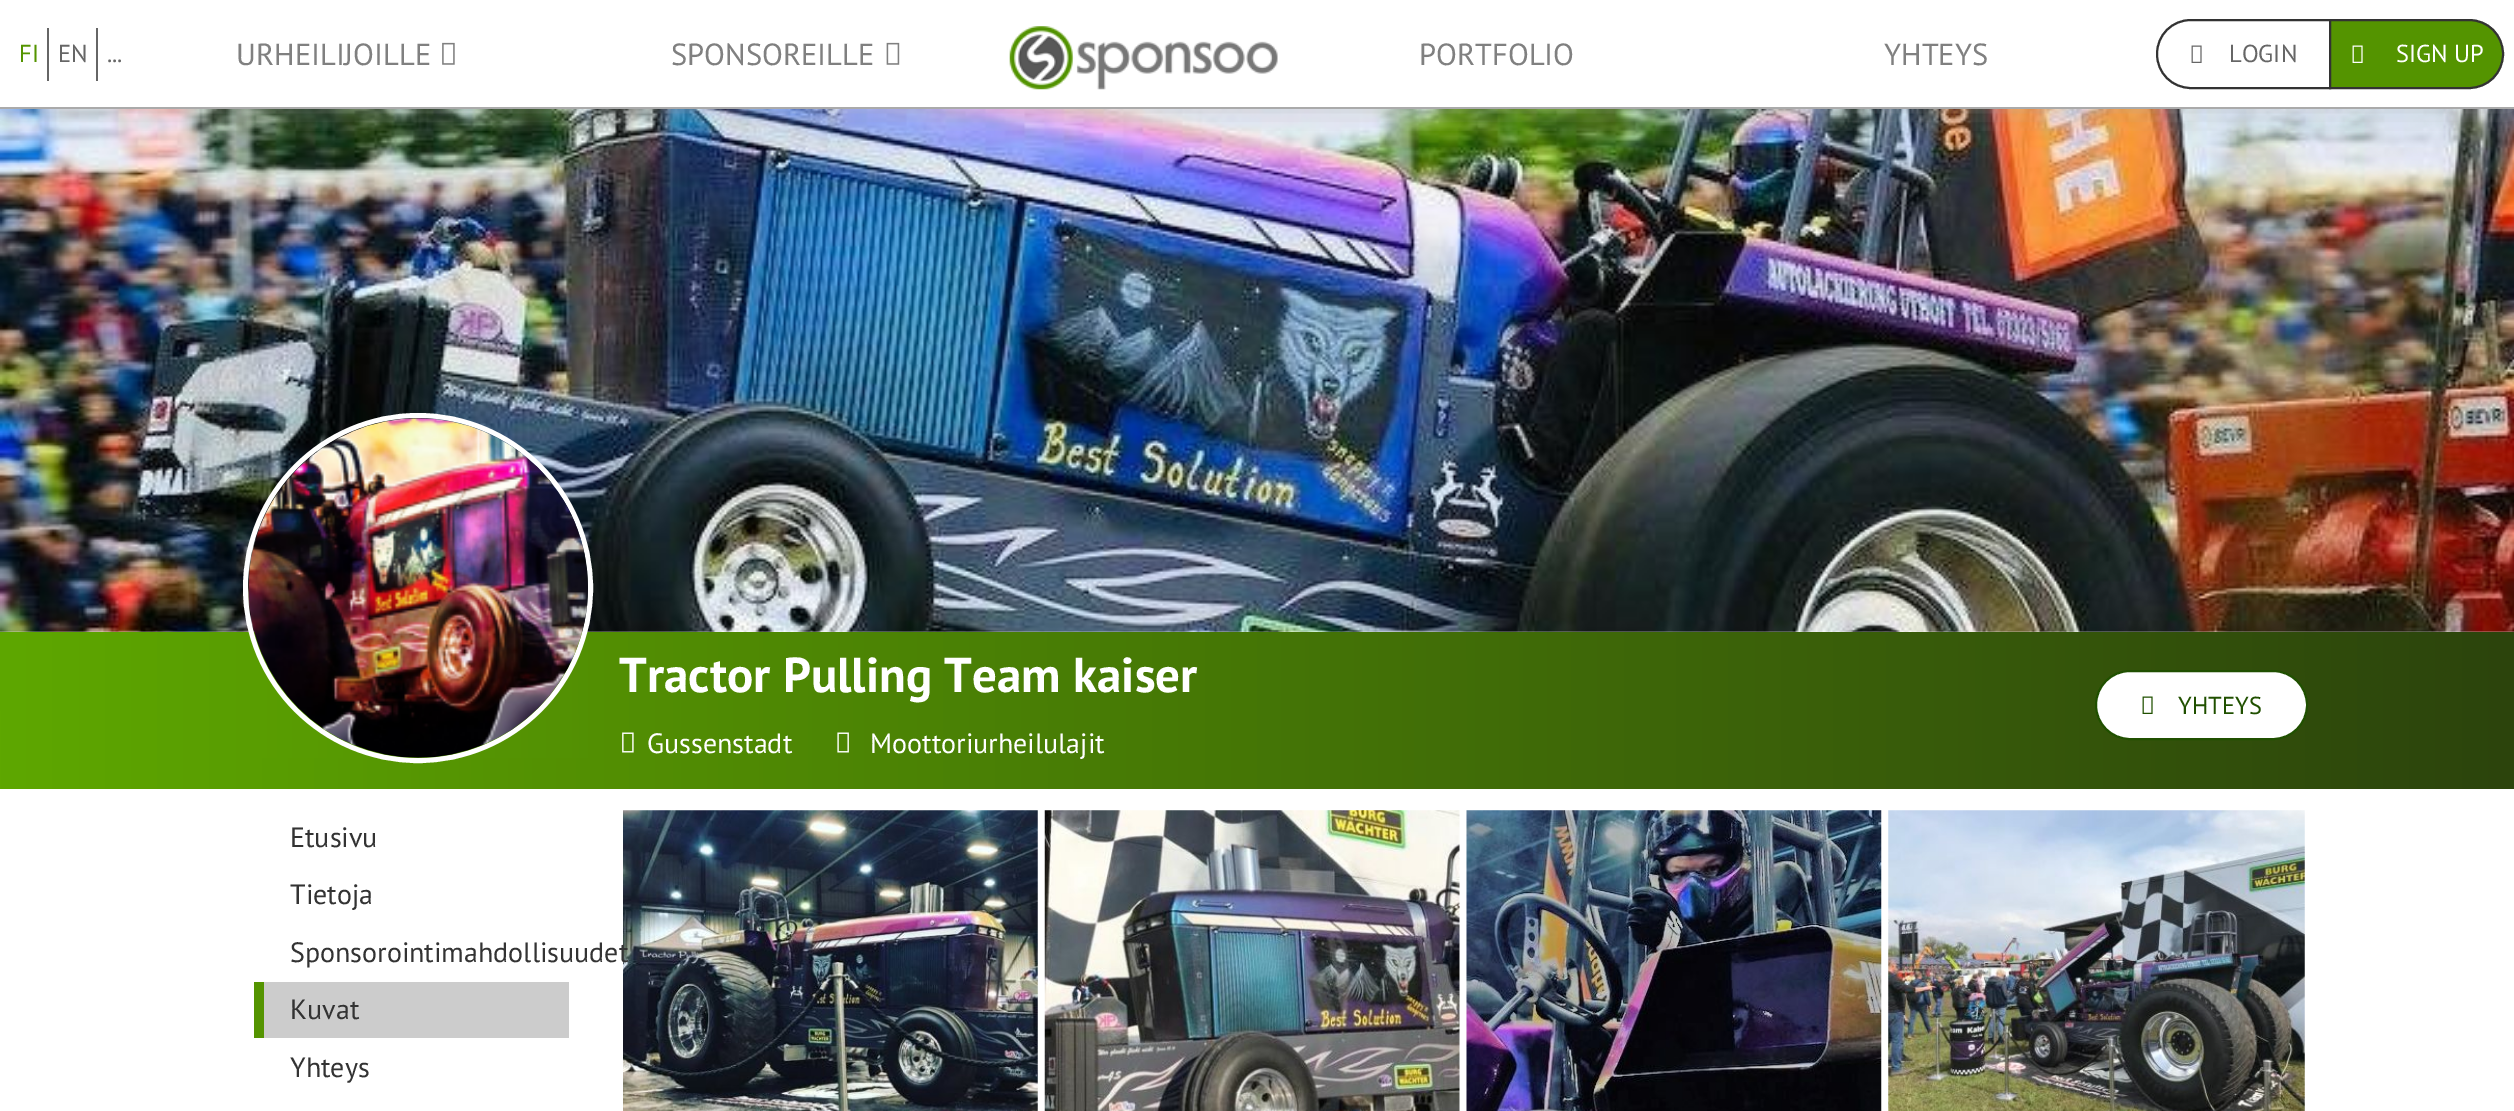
%!PS
<< /PageSize [2514 1111] /PageUsesTransparency true >> setpagedevice
/mt/moveto load def
/li/lineto load def
/ct/curveto load def
/cp/closepath load def
/fl/fill load def
/st/stroke load def
/gs/gsave load def
/gr/grestore load def
/lw/setlinewidth load def
/co { dup -16 bitshift 255 div exch dup -8 bitshift 255 and 255 div exch 255 and 255 div setrgbcolor } def
/fn { [ exch dup neg 0 0 3 -1 roll 0 0 ] selectfont } def
/tx { co fn moveto show } def
/bx { co rectfill } def
/al { dup .setfillconstantalpha .setstrokeconstantalpha } def
/ci { newpath 0 360 arc closepath } def
/rr { 5 dict begin { /r /h /w /y /x } { exch def } forall
  x r add y moveto x w add y 2 copy h add r arct x w add y h add x 1 index r arct
  x y h add x y r arct x y 2 copy exch w add exch r arct closepath end } def
/sh { 12 dict begin { /a /b /q /h /w /y /x } { exch def } forall gsave /was 0 def
  9 -2 -9 { dup b mul 4 div /e exch def 1 sub .425 mul 2.718 exch exp 1 add a .99 .min exch div /now exch def
    1 1 now sub 1 was sub div sub al /was now def
    w h .min e 2 mul add 0 gt { x e sub y e sub w e 2 mul add h e 2 mul add
      q e add b .6 mul add w h .min 2 div e add .min 0 .max rr fill } if } for grestore end } def
/im { 5 dict begin { /h /w /y /x /name } { exch def } forall
  gsave x y translate w h scale
  w h 8 [w 0 0 h 0 0] name (r) file false 3 colorimage grestore end } def
0 .pushpdf14devicefilter
0 1111 translate 1 -1 scale
4 setmiterlimit
0 0 2514 1111 16#FFFFFF bx
(media/6.raw) 0 109 2514 523 im
16#AAAAAA co
0 0 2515 109 0 17.5 .5 sh
0 0 2514 107 16#FFFFFF bx
0 107 2514 2 16#AAAAAA bx
47 28 2 53 16#666666 bx
96 28 2 53 16#666666 bx
(media/1.raw) 442 42 13 23 im
(media/2.raw) 886 42 14 23 im
(media/3.raw) 1009 26 269 64 im
16#333333 co
2 lw
2191 20 mt 2330 20 li 2330 88 li 2191 88 li 2172 88 2157 73 2157 54 ct 2157 35 2172 20 2191 20 ct cp st
(media/4.raw) 2191 45 11 18 im
16#549400 co
2330 20 mt 2469 20 li 2488 20 2503 35 2503 54 ct 2503 73 2488 88 2469 88 ct 2330 88 li cp gs fl gr
16#333333 co
st
(media/5.raw) 2352 45 11 18 im
gs 0 632 mt 2514 632 li 2514 789 li 0 789 li cp clip newpath
<< /ShadingType 2 /ColorSpace /DeviceRGB /Coords [0 711 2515 710] /Extend [true true] /Function << /FunctionType 2 /Domain [0 1] /C0 [.369 .655 0] /C1 [.173 .267 .051] /N 1 >> >> shfill gr
16#FFFFFF co
5 lw
418 588 172.5 ci st
(media/7.raw) 248 418 340 340 im
(media/8.raw) 622 732 12 21 im
(media/9.raw) 837 732 12 21 im
2096 671 211 68 34 rr gs fl gr
16#205000 co
2 lw
st
(media/10.raw) 2142 696 11 18 im
264 982 305 56 16#CCCCCC bx
254 982 10 56 16#549400 bx
(media/11.raw) 623 810 415 301 im
(media/12.raw) 1044 810 416 301 im
(media/13.raw) 1466 810 416 301 im
(media/14.raw) 1888 810 417 301 im
(FI) 19 62 /PTSans-Regular 24.5 16#549400 tx
(EN) 58 62 /PTSans-Regular 24.5 16#666666 tx
(...) 107 62 /PTSans-Regular 24.5 16#666666 tx
(URHEILIJOILLE) 236 65 /PTSans-Regular 30.5 16#808080 tx
(SPONSOREILLE) 671 65 /PTSans-Regular 30.5 16#808080 tx
(PORTFOLIO) 1419 65 /PTSans-Regular 30.5 16#808080 tx
(YHTEYS) 1884 65 /PTSans-Regular 30.5 16#808080 tx
(LOGIN) 2229 62 /PTSans-Regular 24.5 16#666666 tx
(SIGN UP) 2396 62 /PTSans-Regular 24.5 16#FFFFFF tx
(Tractor Pulling Team kaiser) 619 692 /PTSans-Bold 49 16#FFFFFF tx
(Gussenstadt) 647 753 /PTSans-Regular 28 16#FFFFFF tx
(Moottoriurheilulajit) 870 753 /PTSans-Regular 28 16#FFFFFF tx
(YHTEYS) 2178 714 /PTSans-Regular 24.5 16#205000 tx
(Etusivu) 290 847 /PTSans-Regular 28 16#333333 tx
(Tietoja) 290 904 /PTSans-Regular 28 16#333333 tx
(Sponsorointimahdollisuudet) 290 962 /PTSans-Regular 28 16#333333 tx
(Kuvat) 290 1019 /PTSans-Regular 28 16#333333 tx
(Yhteys) 290 1077 /PTSans-Regular 28 16#333333 tx
.poppdf14devicefilter showpage
